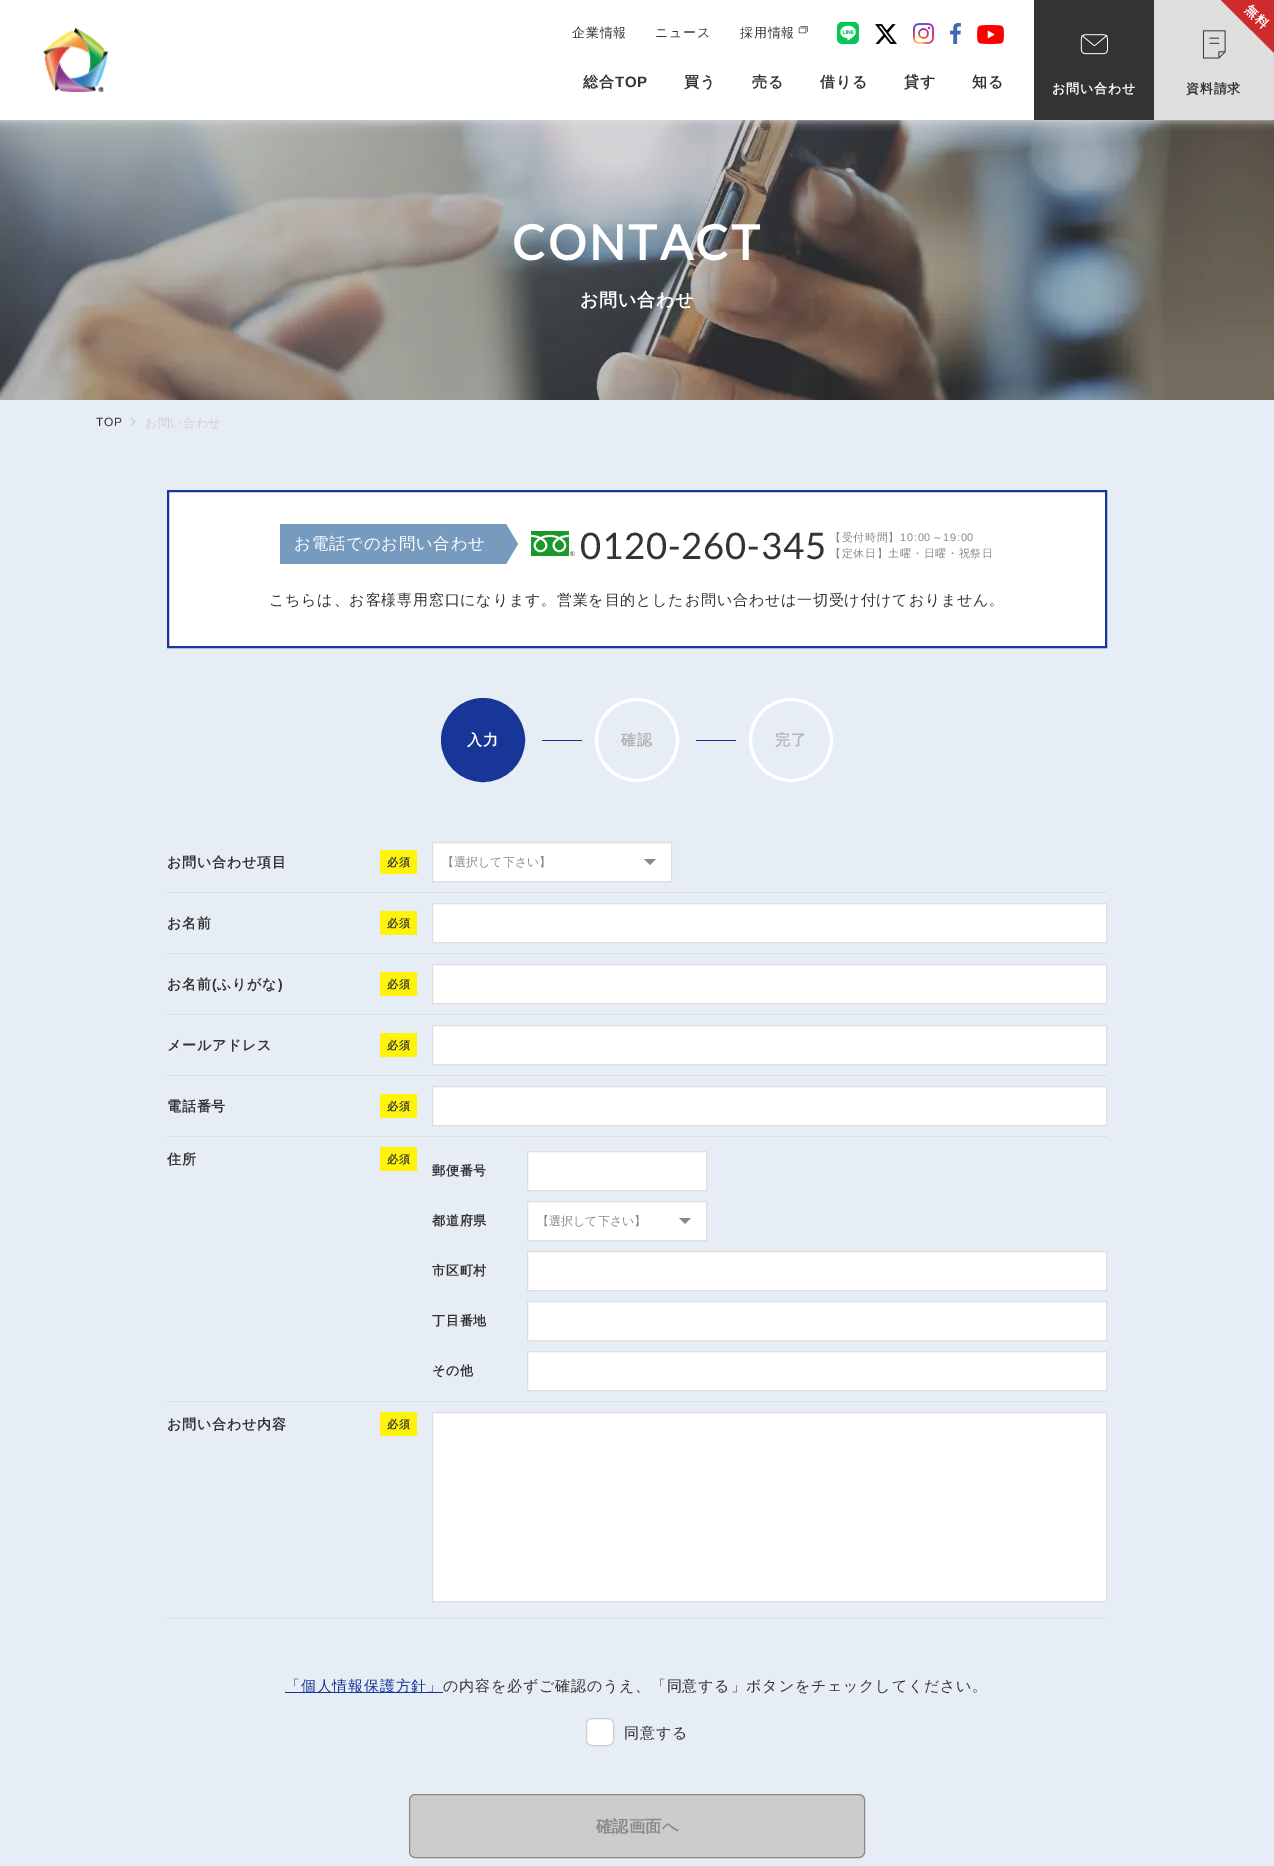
%!PS
<< /PageSize [1274 1866] /PageUsesTransparency true >> setpagedevice
/mt/moveto load def
/li/lineto load def
/cp/closepath load def
/fl/fill load def
/st/stroke load def
/gs/gsave load def
/gr/grestore load def
/lw/setlinewidth load def
/co { dup -16 bitshift 255 div exch dup -8 bitshift 255 and 255 div exch 255 and 255 div setrgbcolor } def
/fn { [ exch dup neg 0 0 3 -1 roll 0 0 ] selectfont } def
/tx { co fn moveto show } def
/bx { co rectfill } def
/al { dup .setfillconstantalpha .setstrokeconstantalpha } def
/ci { newpath 0 360 arc closepath } def
/rr { 5 dict begin { /r /h /w /y /x } { exch def } forall
  x r add y moveto x w add y 2 copy h add r arct x w add y h add x 1 index r arct
  x y h add x y r arct x y 2 copy exch w add exch r arct closepath end } def
/sh { 12 dict begin { /a /b /q /h /w /y /x } { exch def } forall gsave /was 0 def
  9 -2 -9 { dup b mul 4 div /e exch def 1 sub .425 mul 2.718 exch exp 1 add a .99 .min exch div /now exch def
    1 1 now sub 1 was sub div sub al /was now def
    w h .min e 2 mul add 0 gt { x e sub y e sub w e 2 mul add h e 2 mul add
      q e add b .6 mul add w h .min 2 div e add .min 0 .max rr fill } if } for grestore end } def
/im { 5 dict begin { /h /w /y /x /name } { exch def } forall
  gsave x y translate w h scale
  w h 8 [w 0 0 h 0 0] name (r) file false 3 colorimage grestore end } def
0 .pushpdf14devicefilter
0 1866 translate 1 -1 scale
4 setmiterlimit
0 0 1274 1866 16#E7EDF5 bx
(media/10.raw) 0 120 1274 280 im
16#DEDEDE co
0 0 1274 120 0 5 1 sh
0 0 1034 120 16#FFFFFF bx
(media/1.raw) 43 28 65 64 im
(media/2.raw) 798 26 10 8 im
(media/3.raw) 837 22 22 22 im
(media/4.raw) 875 24 22 20 im
(media/5.raw) 913 23 21 21 im
(media/6.raw) 950 23 11 21 im
(media/7.raw) 977 25 27 19 im
1034 0 120 120 16#333333 bx
(media/8.raw) 1080 34 28 21 im
1154 0 120 120 16#DEDEDE bx
(media/9.raw) 1202 30 24 29 im
16#CE2C2C co
1255 -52 mt 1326 19 li 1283 62 li 1212 -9 li cp fl
(media/11.raw) 130 417 6 9 im
16#FFFFFF co
168 491 mt 1106 491 li 1106 647 li 168 647 li cp gs fl gr
16#173697 co
2 lw
st
280 524 226 40 16#779ABF bx
506 564 mt 506 524 li 518 544 li cp fl
(media/12.raw) 531 531 44 25 im
16#173697 co
483 740 40.5 ci gs fl gr
3 lw
st
542 740 40 1 16#173697 bx
16#FFFFFF co
637 740 40.5 ci st
696 740 40 1 16#173697 bx
16#FFFFFF co
791 740 40.5 ci st
380 850 37 24 16#FFF30B bx
433 843 238 38 16#FFFFFF bx
16#888888 co
650 865 mt 644 859 li 656 859 li cp fl
16#DEDEDE co
1 lw
432.5 842.5 239 39 rectstroke
167 892 940 1 16#DEDEDE bx
380 911 37 24 16#FFF30B bx
16#FFFFFF co
432.5 903.5 mt 1106.5 903.5 li 1106.5 942.5 li 432.5 942.5 li cp gs fl gr
16#DEDEDE co
st
167 953 940 1 16#DEDEDE bx
380 972 37 24 16#FFF30B bx
16#FFFFFF co
432.5 964.5 mt 1106.5 964.5 li 1106.5 1003.5 li 432.5 1003.5 li cp gs fl gr
16#DEDEDE co
st
167 1014 940 1 16#DEDEDE bx
380 1033 37 24 16#FFF30B bx
16#FFFFFF co
432.5 1025.5 mt 1106.5 1025.5 li 1106.5 1064.5 li 432.5 1064.5 li cp gs fl gr
16#DEDEDE co
st
167 1075 940 1 16#DEDEDE bx
380 1094 37 24 16#FFF30B bx
16#FFFFFF co
432.5 1086.5 mt 1106.5 1086.5 li 1106.5 1125.5 li 432.5 1125.5 li cp gs fl gr
16#DEDEDE co
st
167 1136 940 1 16#DEDEDE bx
380 1147 37 24 16#FFF30B bx
16#FFFFFF co
527.5 1151.5 mt 706.5 1151.5 li 706.5 1190.5 li 527.5 1190.5 li cp gs fl gr
16#DEDEDE co
st
528 1202 178 38 16#FFFFFF bx
16#888888 co
685 1224 mt 679 1218 li 691 1218 li cp fl
16#DEDEDE co
527.5 1201.5 179 39 rectstroke
16#FFFFFF co
527.5 1251.5 mt 1106.5 1251.5 li 1106.5 1290.5 li 527.5 1290.5 li cp gs fl gr
16#DEDEDE co
st
16#FFFFFF co
527.5 1301.5 mt 1106.5 1301.5 li 1106.5 1340.5 li 527.5 1340.5 li cp gs fl gr
16#DEDEDE co
st
16#FFFFFF co
527.5 1351.5 mt 1106.5 1351.5 li 1106.5 1390.5 li 527.5 1390.5 li cp gs fl gr
16#DEDEDE co
st
167 1401 940 1 16#DEDEDE bx
167 1618 940 1 16#DEDEDE bx
380 1412 37 24 16#FFF30B bx
16#FFFFFF co
432.5 1412.5 mt 1106.5 1412.5 li 1106.5 1601.5 li 432.5 1601.5 li cp gs fl gr
16#DEDEDE co
st
285 1692 158 1 16#173697 bx
16#FFFFFF co
586.5 1718.5 27 27 5.5 rr gs fl gr
16#CCCCCC co
st
409.5 1794.5 455 63 5.5 rr gs fl gr
16#888888 co
st
/WenQuanYiZenHei-Medium 13 fn
16#333333 co
572 37 mt .8 0 (企業情報) ashow
655 37 mt .8 0 (ニュース) ashow
740 37 mt .8 0 (採用情報) ashow
/WenQuanYiZenHei-Bold 15 fn
583 87 mt .8 0 (総合) ashow
/LiberationSans-Bold 15 fn
615 87 mt .8 0 (TOP) ashow
/WenQuanYiZenHei-Bold 15 fn
684 87 mt .8 0 (買う) ashow
752 87 mt .8 0 (売る) ashow
820 87 mt .8 0 (借りる) ashow
904 87 mt .8 0 (貸す) ashow
972 87 mt .8 0 (知る) ashow
/WenQuanYiZenHei-Bold 13 fn
16#FFFFFF co
1052 93 mt .8 0 (お問い合わせ) ashow
gs 1244 10 translate 45 rotate 0 0 mt .8 0 (無料) ashow gr
16#333333 co
1186 93 mt .8 0 (資料請求) ashow
/Lato-Bold 48 fn
16#FFFFFF co
512 260 mt 3 0 (CONTACT) ashow
/WenQuanYiZenHei-Bold 18 fn
580 306 mt .8 0 (お問い合わせ) ashow
/LiberationSans-Regular 12 fn
16#333333 co
96 426 mt .5 0 (TOP) ashow
/WenQuanYiZenHei-Medium 12 fn
16#CCCCCC co
145 427 mt .5 0 (お問い合わせ) ashow
/WenQuanYiZenHei-Medium 16.4 fn
16#FFFFFF co
294 549 mt .8 0 (お電話でのお問い合わせ) ashow
/Lato-Regular 36.5 fn
16#333333 co
580 559 mt .8 0 (0120-260-345) ashow
/WenQuanYiZenHei-Medium 10.9 fn
16#888888 co
830 541 mt .8 0 (【受付時間】) ashow
/LiberationSans-Regular 10.9 fn
900 541 mt .8 0 (10:00) ashow
/WenQuanYiZenHei-Medium 10.9 fn
932 541 mt .8 0 (～) ashow
/LiberationSans-Regular 10.9 fn
943 541 mt .8 0 (19:00) ashow
/WenQuanYiZenHei-Medium 10.9 fn
830 557 mt .8 0 (【定休日】土曜・日曜・祝祭日) ashow
/WenQuanYiZenHei-Medium 15 fn
16#333333 co
269 605 mt .8 0 (こちらは、お客様専用窓口になります。営業を目的としたお問い合わせは一切受け付けておりません。) ashow
/WenQuanYiZenHei-Bold 15 fn
16#FFFFFF co
467 745 mt .8 0 (入力) ashow
16#B4B2B1 co
621 745 mt .8 0 (確認) ashow
775 745 mt .8 0 (完了) ashow
/WenQuanYiZenHei-Bold 14 fn
16#333333 co
167 867 mt .8 0 (お問い合わせ項目) ashow
/WenQuanYiZenHei-Bold 11 fn
387 866 mt .8 0 (必須) ashow
(【選択して下さい】) 442 866 /WenQuanYiZenHei-Medium 12 16#888888 tx
/WenQuanYiZenHei-Bold 14 fn
16#333333 co
167 928 mt .8 0 (お名前) ashow
/WenQuanYiZenHei-Bold 11 fn
387 927 mt .8 0 (必須) ashow
/WenQuanYiZenHei-Bold 14 fn
167 989 mt .8 0 (お名前) ashow
/LiberationSans-Bold 14 fn
212 989 mt .8 0 (\() ashow
/WenQuanYiZenHei-Bold 14 fn
217 989 mt .8 0 (ふりがな) ashow
/LiberationSans-Bold 14 fn
278 989 mt .8 0 (\)) ashow
/WenQuanYiZenHei-Bold 11 fn
387 988 mt .8 0 (必須) ashow
/WenQuanYiZenHei-Bold 14 fn
167 1050 mt .8 0 (メールアドレス) ashow
/WenQuanYiZenHei-Bold 11 fn
387 1049 mt .8 0 (必須) ashow
/WenQuanYiZenHei-Bold 14 fn
167 1111 mt .8 0 (電話番号) ashow
/WenQuanYiZenHei-Bold 11 fn
387 1110 mt .8 0 (必須) ashow
/WenQuanYiZenHei-Bold 14 fn
167 1164 mt .8 0 (住所) ashow
/WenQuanYiZenHei-Bold 11 fn
387 1163 mt .8 0 (必須) ashow
/WenQuanYiZenHei-Bold 13 fn
432 1175 mt .8 0 (郵便番号) ashow
432 1225 mt .8 0 (都道府県) ashow
(【選択して下さい】) 537 1225 /WenQuanYiZenHei-Medium 12 16#888888 tx
/WenQuanYiZenHei-Bold 13 fn
16#333333 co
432 1275 mt .8 0 (市区町村) ashow
432 1325 mt .8 0 (丁目番地) ashow
432 1375 mt .8 0 (その他) ashow
/WenQuanYiZenHei-Bold 14 fn
167 1429 mt .8 0 (お問い合わせ内容) ashow
/WenQuanYiZenHei-Bold 11 fn
387 1428 mt .8 0 (必須) ashow
/WenQuanYiZenHei-Medium 15 fn
16#173697 co
285 1691 mt .8 0 (「個人情報保護方針」) ashow
16#333333 co
443 1691 mt .8 0 (の内容を必ずご確認のうえ、「同意する」ボタンをチェックしてください。) ashow
624 1738 mt .8 0 (同意する) ashow
(確認画面へ) 596 1832 /WenQuanYiZenHei-Bold 16.4 16#888888 tx
.poppdf14devicefilter showpage
